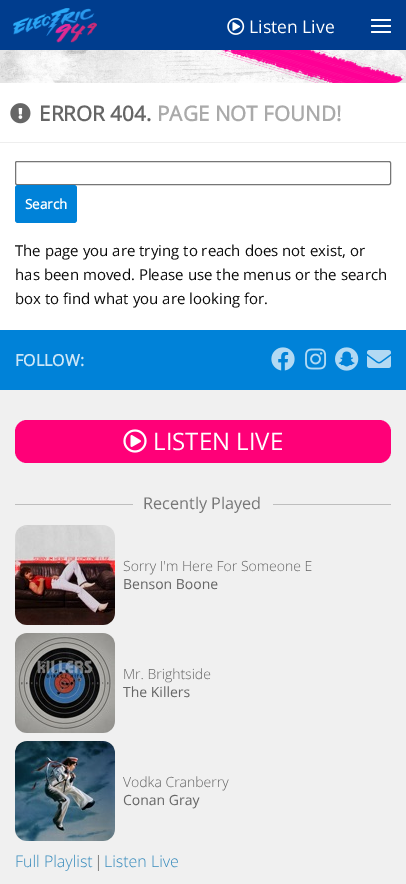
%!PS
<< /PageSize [406 884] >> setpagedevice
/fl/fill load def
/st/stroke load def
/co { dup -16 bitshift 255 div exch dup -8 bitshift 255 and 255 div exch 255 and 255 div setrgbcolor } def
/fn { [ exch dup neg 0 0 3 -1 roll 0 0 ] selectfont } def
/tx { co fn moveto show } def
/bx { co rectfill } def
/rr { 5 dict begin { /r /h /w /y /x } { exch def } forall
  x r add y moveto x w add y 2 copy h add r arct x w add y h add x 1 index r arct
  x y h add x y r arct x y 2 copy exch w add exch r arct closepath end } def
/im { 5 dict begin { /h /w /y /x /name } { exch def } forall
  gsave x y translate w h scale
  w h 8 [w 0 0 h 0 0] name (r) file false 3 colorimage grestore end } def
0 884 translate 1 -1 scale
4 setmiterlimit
0 0 406 884 16#E5E5E5 bx
0 0 406 50 16#003D8E bx
(media/1.raw) 13 8 84 35 im
(media/2.raw) 227 18 18 17 im
16#FFFFFF co
371 19 20 2 1 rr fl
371 25 20 2 1 rr fl
371 31 20 2 1 rr fl
(media/3.raw) 0 50 406 33 im
0 83 406 247 16#FFFFFF bx
0 142 406 1 16#EEEEEE bx
(media/4.raw) 10 103 21 21 im
16#767676 co
15.5 161.5 375 23 1.5 rr st
16#0082D8 co
15 185 62 38 3 rr fl
0 390 406 494 16#F0F0F0 bx
0 330 406 60 16#0082D8 bx
(media/5.raw) 271 347 24 24 im
(media/6.raw) 305 348 22 22 im
(media/7.raw) 335 347 24 24 im
(media/8.raw) 367 350 24 18 im
16#FF0078 co
15 420 376 43 12 rr fl
(media/9.raw) 123 429 24 24 im
15 504 376 1 16#BEBEBE bx
133 504 140 1 16#F0F0F0 bx
(media/10.raw) 15 525 297 346 im
(Listen Live) 249 33 /OpenSans-Regular 17.5 16#FFFFFF tx
(ERROR 404.) 39 121 /OpenSans-Bold 20.75 16#666666 tx
(PAGE NOT FOUND!) 157 121 /OpenSans-Bold 20.75 16#AAAAAA tx
(Search) 25 209 /OpenSans-Bold 13.5 16#FFFFFF tx
(The page you are trying to reach does not exist, or) 15 256 /OpenSans-Regular 15 16#0C0C0C tx
(has been moved. Please use the menus or the search) 15 280 /OpenSans-Regular 15 16#0C0C0C tx
(box to find what you are looking for.) 15 304 /OpenSans-Regular 15 16#0C0C0C tx
(FOLLOW:) 15 366 /OpenSans-Bold 16 16#CCE6F7 tx
(LISTEN LIVE) 153 450 /OpenSans-Regular 24 16#FFFFFF tx
(Recently Played) 143 509 /OpenSans-Regular 16.25 16#777777 tx
showpage
